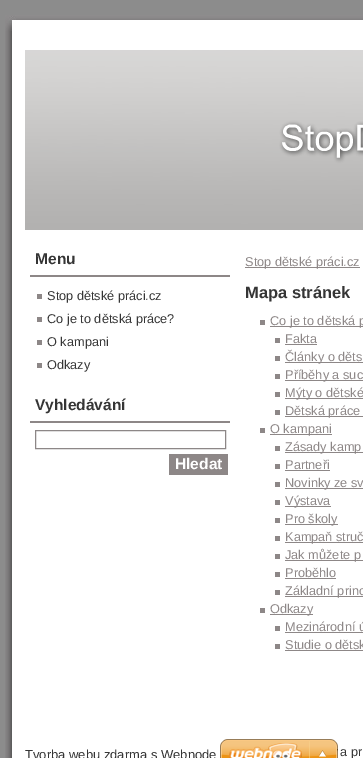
%!PS
<< /PageSize [363 758] >> setpagedevice
/co { dup -16 bitshift 255 div exch dup -8 bitshift 255 and 255 div exch 255 and 255 div setrgbcolor } def
/fn { [ exch dup neg 0 0 3 -1 roll 0 0 ] selectfont } def
/tx { co fn moveto show } def
/bx { co rectfill } def
/im { 5 dict begin { /h /w /y /x /name } { exch def } forall
  gsave x y translate w h scale
  w h 8 [w 0 0 h 0 0] name (r) file false 3 colorimage grestore end } def
0 758 translate 1 -1 scale
4 setmiterlimit
0 0 363 758 16#8C8C8C bx
(media/1.raw) 5 31 358 712 im
(media/2.raw) 5 15 358 16 im
(media/3.raw) 5 743 358 6 im
(media/4.raw) 25 50 338 180 im
30 275 200 2 16#8D8787 bx
37 294 5 5 16#8D8787 bx
37 317 5 5 16#8D8787 bx
37 340 5 5 16#8D8787 bx
37 363 5 5 16#8D8787 bx
30 421 200 2 16#8D8787 bx
35.5 430.5 190 18 rectstroke
169 454 59 21 16#8D8787 bx
245 267 115 1 16#8D8787 bx
260 320 5 5 16#8D8787 bx
270 326 93 1 16#8D8787 bx
275 338 5 5 16#8D8787 bx
285 344 32 1 16#8D8787 bx
275 356 5 5 16#8D8787 bx
285 362 78 1 16#8D8787 bx
275 374 5 5 16#8D8787 bx
285 380 78 1 16#8D8787 bx
275 392 5 5 16#8D8787 bx
285 398 78 1 16#8D8787 bx
275 410 5 5 16#8D8787 bx
285 416 78 1 16#8D8787 bx
260 428 5 5 16#8D8787 bx
270 434 62 1 16#8D8787 bx
275 446 5 5 16#8D8787 bx
285 452 78 1 16#8D8787 bx
275 464 5 5 16#8D8787 bx
285 470 45 1 16#8D8787 bx
275 482 5 5 16#8D8787 bx
285 488 78 1 16#8D8787 bx
275 500 5 5 16#8D8787 bx
285 506 46 1 16#8D8787 bx
275 518 5 5 16#8D8787 bx
285 524 53 1 16#8D8787 bx
275 536 5 5 16#8D8787 bx
285 542 78 1 16#8D8787 bx
275 554 5 5 16#8D8787 bx
285 560 78 1 16#8D8787 bx
275 572 5 5 16#8D8787 bx
285 578 51 1 16#8D8787 bx
275 590 5 5 16#8D8787 bx
285 596 78 1 16#8D8787 bx
260 608 5 5 16#8D8787 bx
270 614 43 1 16#8D8787 bx
275 626 5 5 16#8D8787 bx
285 632 78 1 16#8D8787 bx
275 644 5 5 16#8D8787 bx
285 650 78 1 16#8D8787 bx
(media/5.raw) 5 749 358 9 im
(media/6.raw) 220 739 118 19 im
(Menu) 35 264 /LiberationSans-Bold 15.5 16#353535 tx
(Stop dětské práci.cz) 47 300 /LiberationSans-Regular 12.75 16#353535 tx
(Co je to dětská práce?) 47 323 /LiberationSans-Regular 12.75 16#353535 tx
(O kampani) 47 346 /LiberationSans-Regular 12.75 16#353535 tx
(Odkazy) 47 369 /LiberationSans-Regular 12.75 16#353535 tx
(Vyhledávání) 35 410 /LiberationSans-Bold 15.5 16#353535 tx
(Hledat) 175 469 /LiberationSans-Bold 15.5 16#FFFFFF tx
(Stop dětské práci.cz) 245 266 /LiberationSans-Regular 12.75 16#8D8787 tx
(Mapa stránek) 245 298 /LiberationSans-Bold 16.5 16#353535 tx
(Co je to dětská p) 270 325 /LiberationSans-Regular 12.75 16#8D8787 tx
(Fakta) 285 343 /LiberationSans-Regular 12.75 16#8D8787 tx
(Články o děts) 285 361 /LiberationSans-Regular 12.75 16#8D8787 tx
(Příběhy a suc) 285 379 /LiberationSans-Regular 12.75 16#8D8787 tx
(Mýty o dětské) 285 397 /LiberationSans-Regular 12.75 16#8D8787 tx
(Dětská práce) 285 415 /LiberationSans-Regular 12.75 16#8D8787 tx
(O kampani) 270 433 /LiberationSans-Regular 12.75 16#8D8787 tx
(Zásady kamp) 285 451 /LiberationSans-Regular 12.75 16#8D8787 tx
(Partneři) 285 469 /LiberationSans-Regular 12.75 16#8D8787 tx
(Novinky ze sv) 285 487 /LiberationSans-Regular 12.75 16#8D8787 tx
(Výstava) 285 505 /LiberationSans-Regular 12.75 16#8D8787 tx
(Pro školy) 285 523 /LiberationSans-Regular 12.75 16#8D8787 tx
(Kampaň struč) 285 541 /LiberationSans-Regular 12.75 16#8D8787 tx
(Jak můžete p) 285 559 /LiberationSans-Regular 12.75 16#8D8787 tx
(Proběhlo) 285 577 /LiberationSans-Regular 12.75 16#8D8787 tx
(Základní princ) 285 595 /LiberationSans-Regular 12.75 16#8D8787 tx
(Odkazy) 270 613 /LiberationSans-Regular 12.75 16#8D8787 tx
(Mezinárodní ú) 285 631 /LiberationSans-Regular 12.75 16#8D8787 tx
(Studie o dětsk) 285 649 /LiberationSans-Regular 12.75 16#8D8787 tx
(a pr) 340 756 /LiberationSans-Regular 12.75 16#353535 tx
(Tvorba webu zdarma s Webnode) 25 759 /LiberationSans-Regular 13 16#353535 tx
showpage
